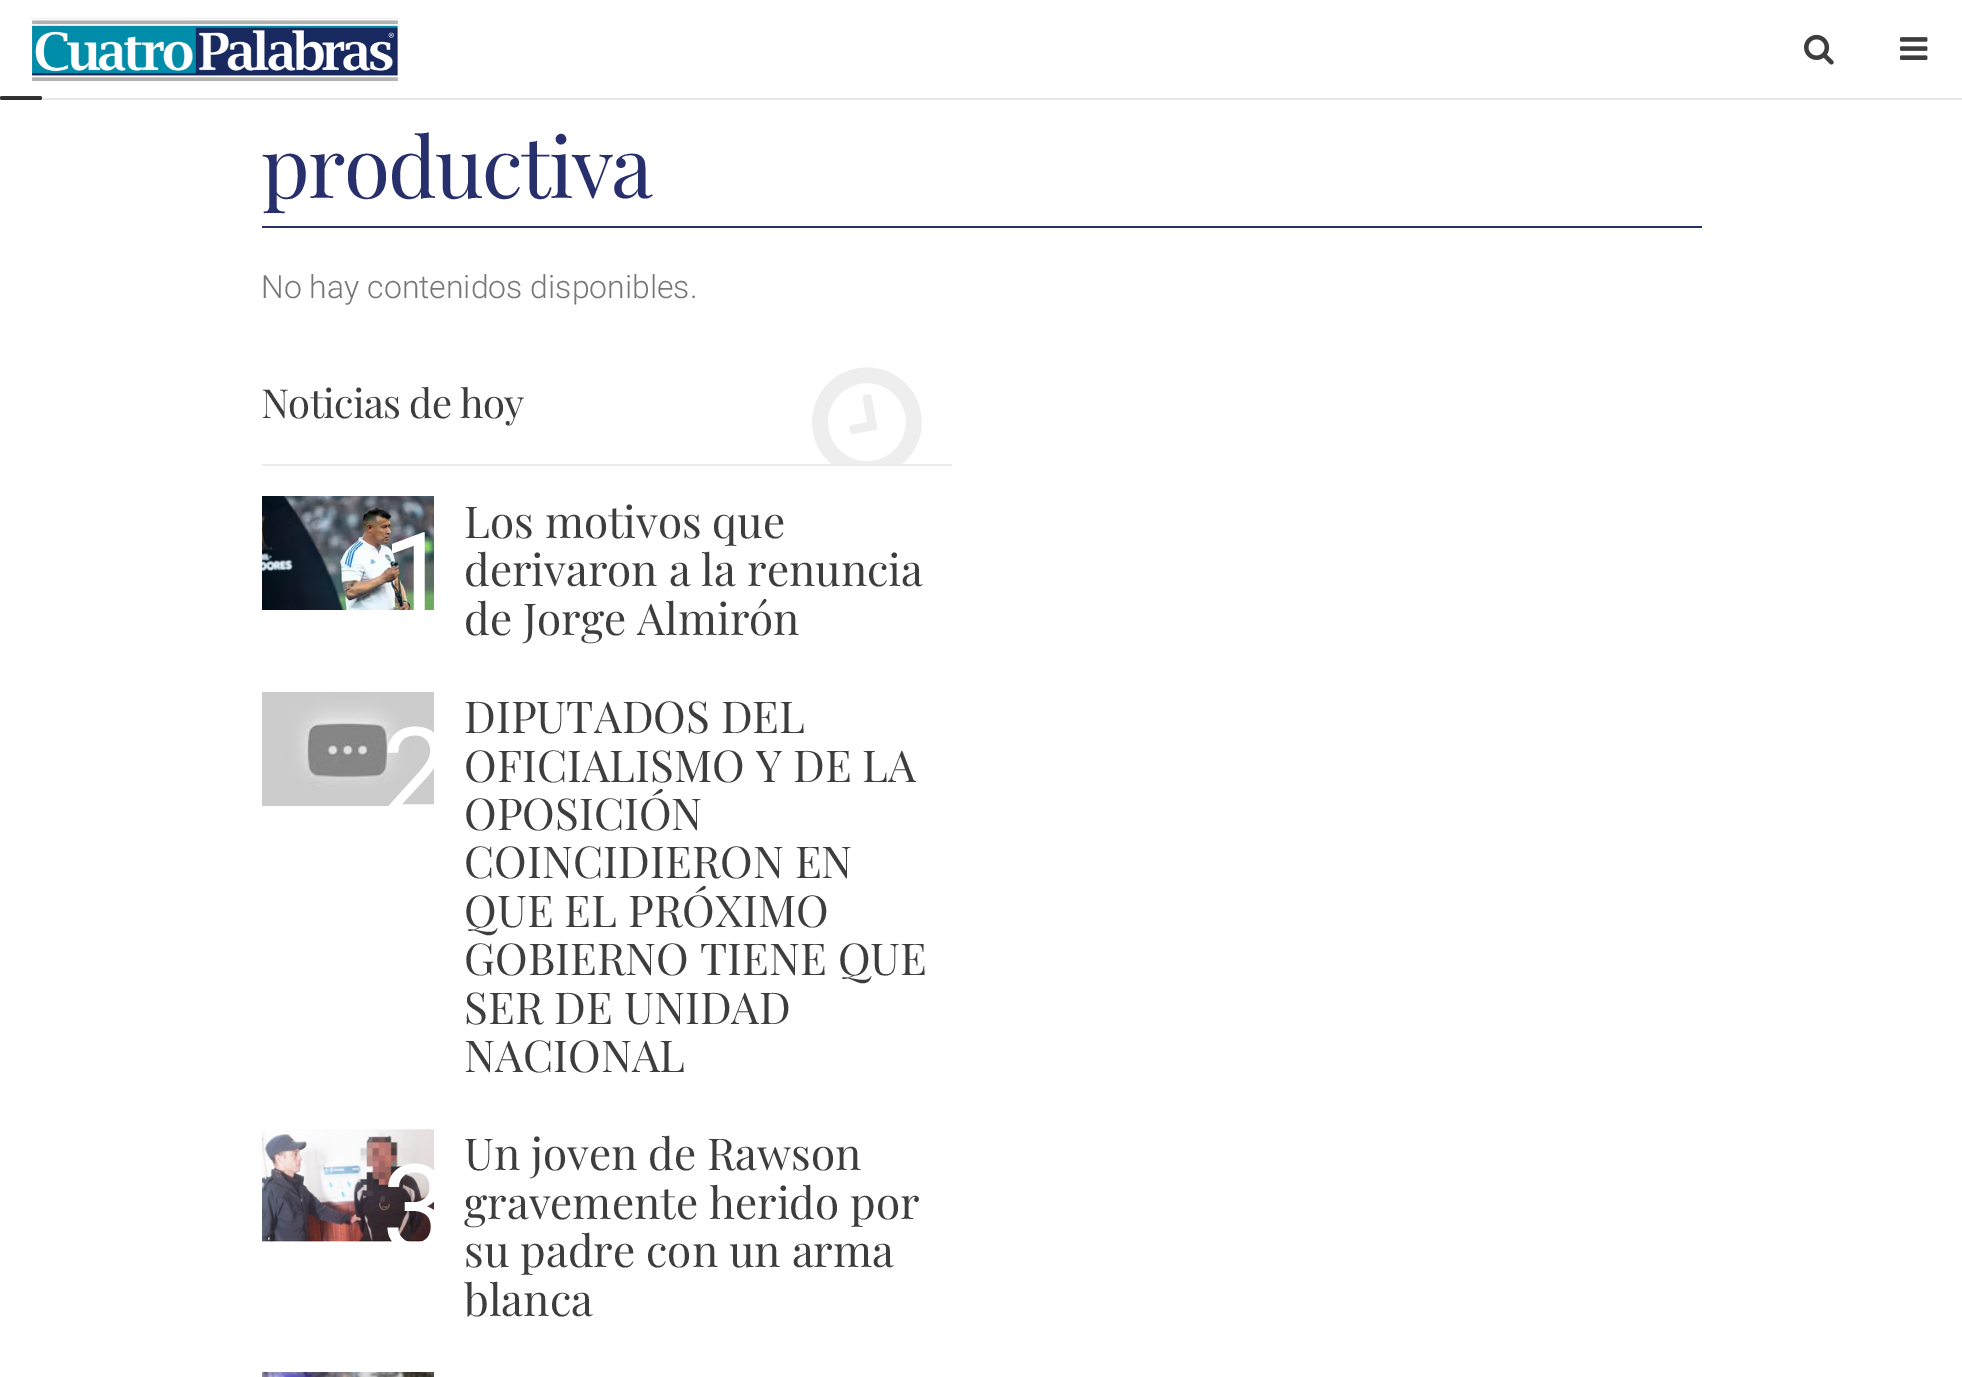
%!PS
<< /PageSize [1962 1377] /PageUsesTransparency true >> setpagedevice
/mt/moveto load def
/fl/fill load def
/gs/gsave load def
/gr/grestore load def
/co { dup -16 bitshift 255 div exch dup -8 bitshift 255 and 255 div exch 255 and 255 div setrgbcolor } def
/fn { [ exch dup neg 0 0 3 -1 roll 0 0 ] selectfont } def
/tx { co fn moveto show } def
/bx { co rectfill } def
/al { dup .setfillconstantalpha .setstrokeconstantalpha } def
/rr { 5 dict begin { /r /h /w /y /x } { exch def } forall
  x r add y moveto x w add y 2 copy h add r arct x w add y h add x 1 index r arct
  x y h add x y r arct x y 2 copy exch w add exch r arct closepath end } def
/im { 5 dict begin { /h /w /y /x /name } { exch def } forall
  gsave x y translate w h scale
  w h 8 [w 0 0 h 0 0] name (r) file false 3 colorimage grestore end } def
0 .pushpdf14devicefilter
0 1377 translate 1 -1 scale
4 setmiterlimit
0 0 1962 1377 16#FFFFFF bx
0 98 1962 2 16#E8E8E8 bx
(media/1.raw) 30 18 370 64 im
(media/2.raw) 1804 34 30 31 im
(media/3.raw) 1900 37 28 23 im
0.8 al
16#000000 co
0 96 42 4 2 rr fl
1 al
262 226 1440 2 16#272F6D bx
262 464 690 2 16#EAEAEA bx
(media/4.raw) 812 367 110 97 im
(media/5.raw) 262 496 172 114 im
(media/6.raw) 262 692 172 114 im
(media/7.raw) 262 1129 172 113 im
(media/8.raw) 262 1372 172 5 im
/PlayfairDisplay-Regular 84 fn
16#272F6D co
261 198 mt -1.75 0 (productiva) ashow
(No hay contenidos disponibles.) 261 298 /Roboto-Light 32 16#777777 tx
/PlayfairDisplay-Regular 40 fn
16#3D3D3D co
261 418 mt -.75 0 (Noticias de hoy) ashow
gs
262 496 172 114 rectclip
(1) 382 618 /Roboto-Regular 120 16#FFFFFF tx
gr
(Los motivos que) 464 538 /PlayfairDisplay-Regular 44 16#3D3D3D tx
(derivaron a la renuncia) 464 586 /PlayfairDisplay-Regular 44 16#3D3D3D tx
(de Jorge Almirón) 464 635 /PlayfairDisplay-Regular 44 16#3D3D3D tx
gs
262 692 172 114 rectclip
(2) 382 813 /Roboto-Regular 120 16#FFFFFF tx
gr
(DIPUTADOS DEL) 464 733 /PlayfairDisplay-Regular 44 16#3D3D3D tx
(OFICIALISMO Y DE LA) 464 782 /PlayfairDisplay-Regular 44 16#3D3D3D tx
(OPOSICIÓN) 464 830 /PlayfairDisplay-Regular 44 16#3D3D3D tx
(COINCIDIERON EN) 464 878 /PlayfairDisplay-Regular 44 16#3D3D3D tx
(QUE EL PRÓXIMO) 464 927 /PlayfairDisplay-Regular 44 16#3D3D3D tx
(GOBIERNO TIENE QUE) 464 975 /PlayfairDisplay-Regular 44 16#3D3D3D tx
(SER DE UNIDAD) 464 1024 /PlayfairDisplay-Regular 44 16#3D3D3D tx
(NACIONAL) 464 1072 /PlayfairDisplay-Regular 44 16#3D3D3D tx
gs
262 1128 172 114 rectclip
(3) 382 1250 /Roboto-Regular 120 16#FFFFFF tx
gr
(Un joven de Rawson) 464 1170 /PlayfairDisplay-Regular 44 16#3D3D3D tx
(gravemente herido por) 464 1219 /PlayfairDisplay-Regular 44 16#3D3D3D tx
(su padre con un arma) 464 1267 /PlayfairDisplay-Regular 44 16#3D3D3D tx
(blanca) 464 1316 /PlayfairDisplay-Regular 44 16#3D3D3D tx
.poppdf14devicefilter showpage
